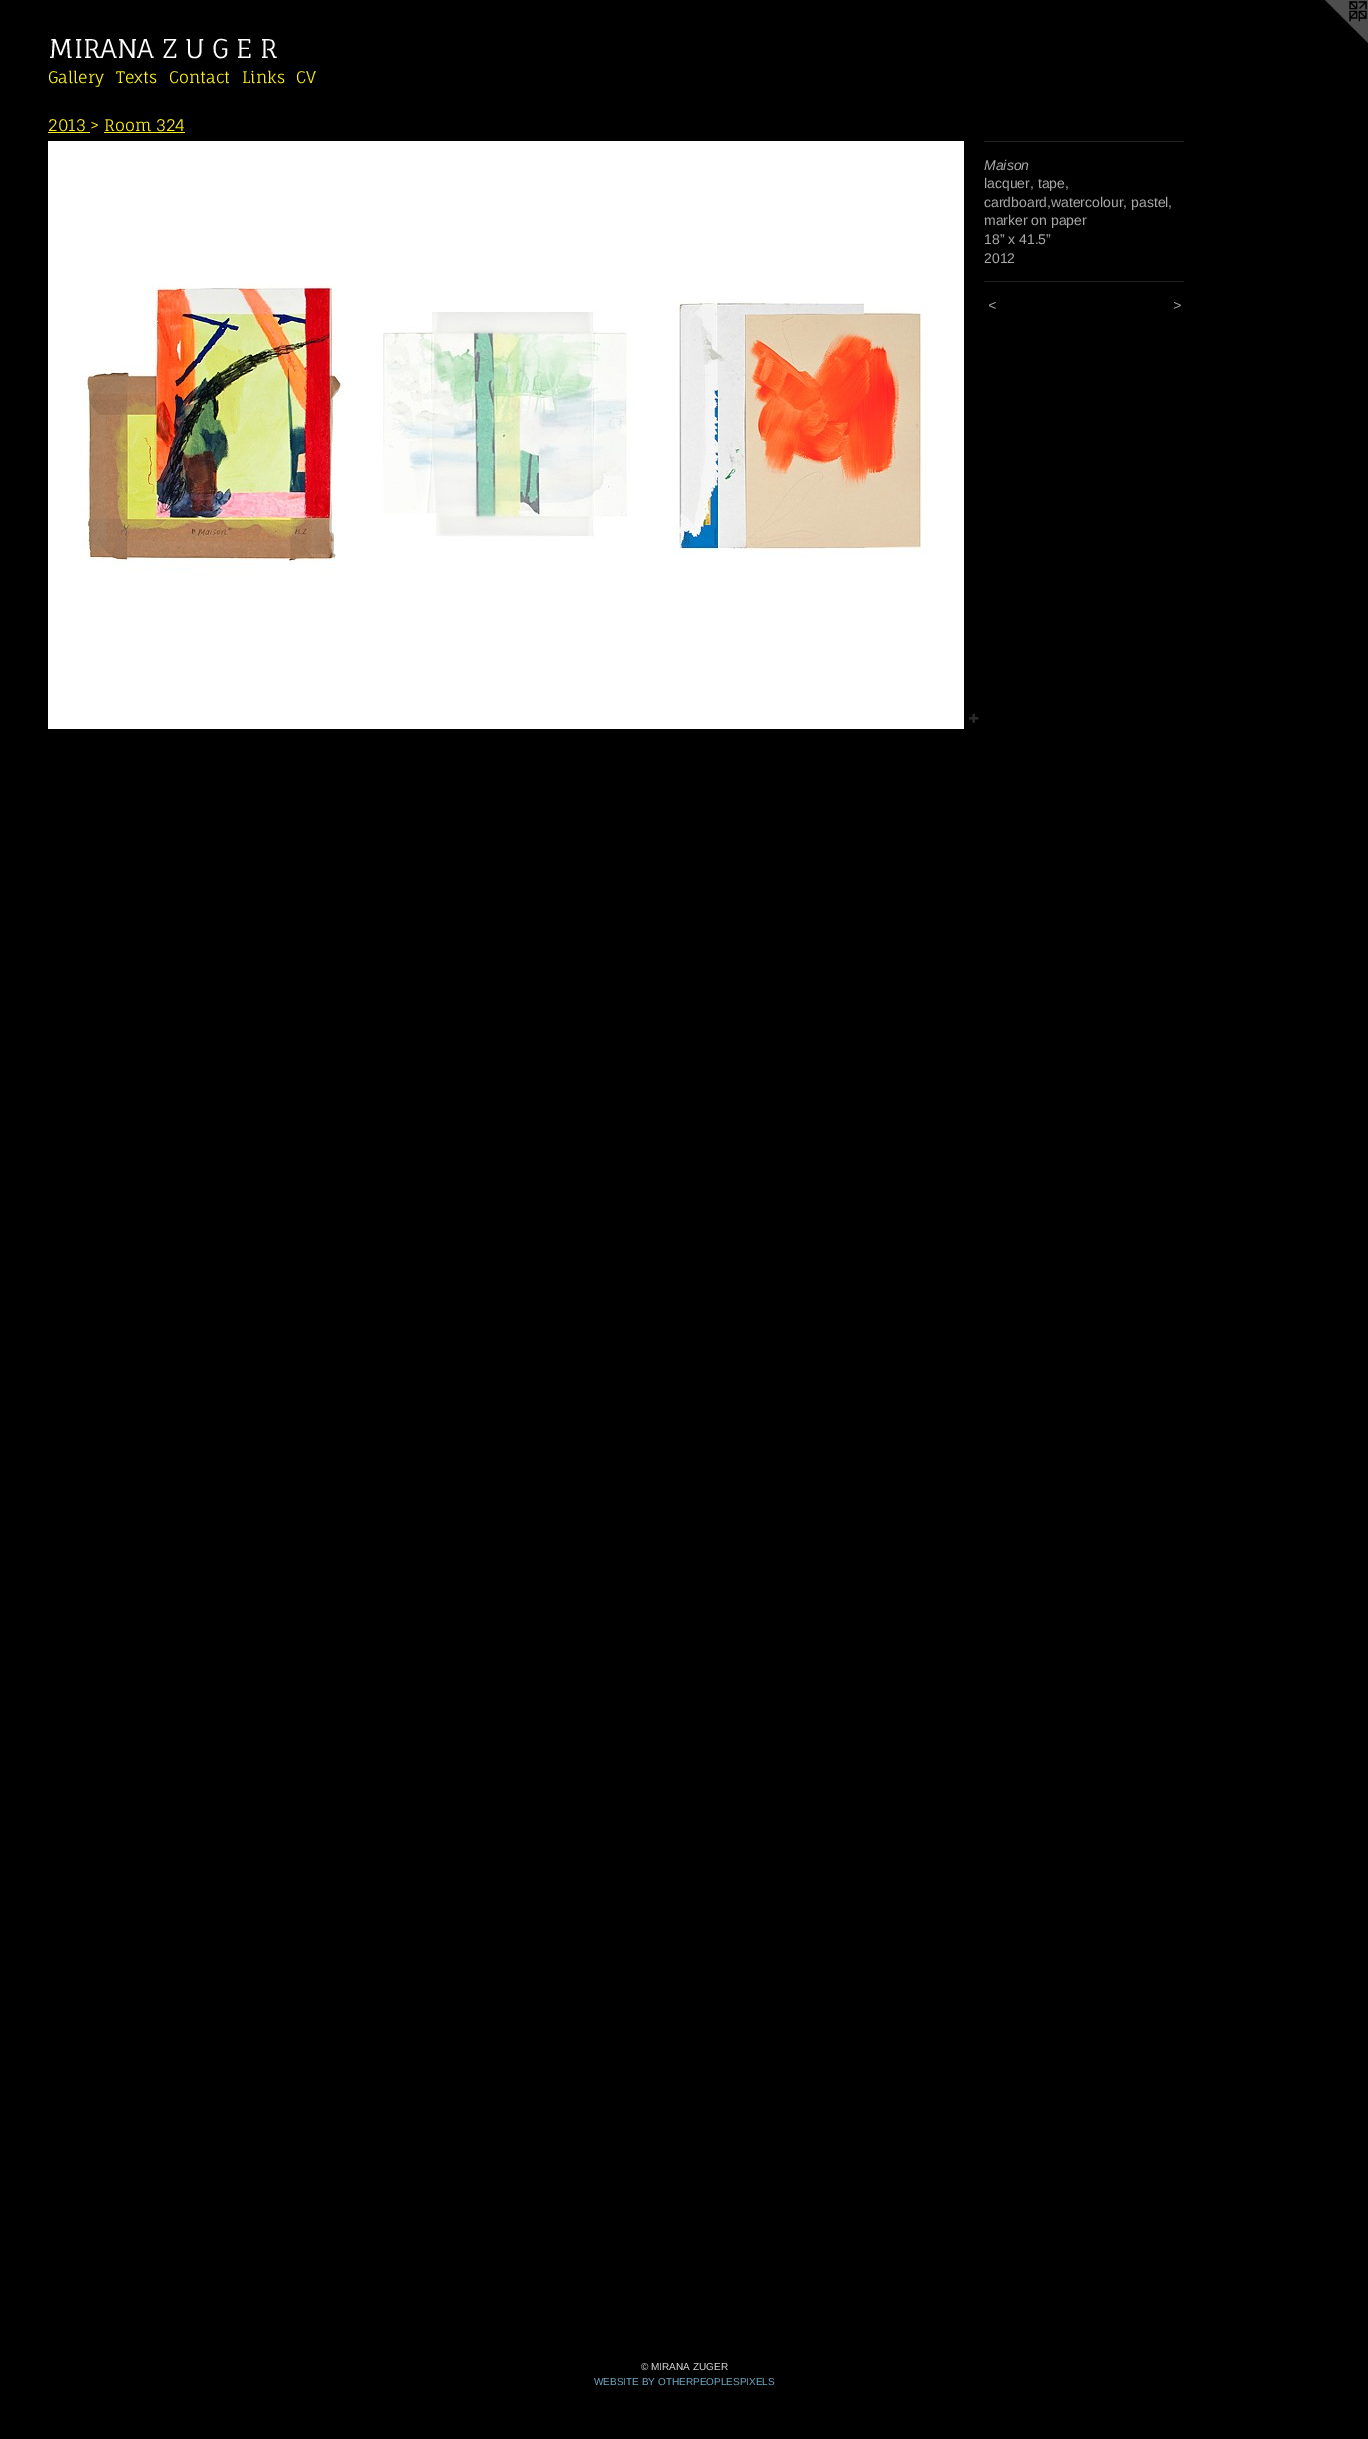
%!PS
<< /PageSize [1368 2439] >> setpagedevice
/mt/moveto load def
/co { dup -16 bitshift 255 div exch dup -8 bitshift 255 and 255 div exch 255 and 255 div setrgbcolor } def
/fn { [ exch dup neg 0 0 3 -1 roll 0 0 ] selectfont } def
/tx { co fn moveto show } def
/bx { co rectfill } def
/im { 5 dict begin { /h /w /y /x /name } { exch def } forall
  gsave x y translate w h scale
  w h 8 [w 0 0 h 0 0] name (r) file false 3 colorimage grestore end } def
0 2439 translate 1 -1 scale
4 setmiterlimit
0 0 1368 2439 16#000000 bx
(media/1.raw) 1325 0 43 43 im
48 132 42 1 16#F9EC1F bx
104 132 81 1 16#F9EC1F bx
(media/2.raw) 48 141 916 588 im
(media/3.raw) 969 713 10 10 im
984 141 200 1 16#222222 bx
984 281 200 1 16#222222 bx
(MIRANA Z U G E R) 48 58 /FaunaOne-Regular 26 16#FFFFFF tx
(Gallery) 48 83 /FaunaOne-Regular 16 16#F9EC1F tx
(Texts) 116 83 /FaunaOne-Regular 16 16#F9EC1F tx
(Contact) 169 83 /FaunaOne-Regular 16 16#F9EC1F tx
(Links) 242 83 /FaunaOne-Regular 16 16#F9EC1F tx
(CV) 296 83 /FaunaOne-Regular 16 16#F9EC1F tx
(2013 > Room 324) 48 131 /FaunaOne-Regular 16 16#F9EC1F tx
(Maison) 984 170 /LiberationSans-Italic 14 16#A8A8A8 tx
(lacquer, tape,) 984 188 /LiberationSans-Regular 14 16#A8A8A8 tx
(cardboard,watercolour, pastel,) 984 207 /LiberationSans-Regular 14 16#A8A8A8 tx
(marker on paper) 984 225 /LiberationSans-Regular 14 16#A8A8A8 tx
(18” x 41.5”) 984 244 /LiberationSans-Regular 14 16#A8A8A8 tx
(2012) 984 263 /LiberationSans-Regular 14 16#A8A8A8 tx
/LiberationSans-Italic 14 fn
988 310 mt 1 0 (<) ashow
1173 310 mt 1 0 (>) ashow
(© MIRANA ZUGER) 641 2370 /LiberationSans-Regular 10 16#D6D6D6 tx
(WEBSITE BY OTHERPEOPLESPIXELS) 594 2385 /LiberationSans-Regular 10 16#70A8C0 tx
showpage
